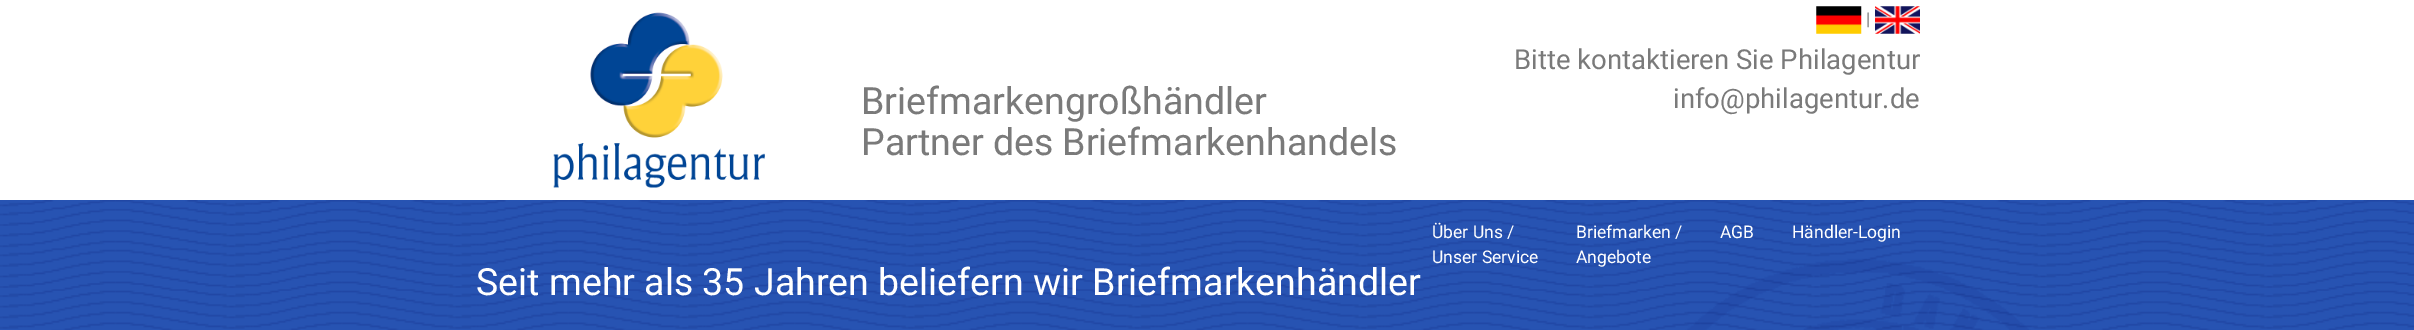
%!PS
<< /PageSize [2414 330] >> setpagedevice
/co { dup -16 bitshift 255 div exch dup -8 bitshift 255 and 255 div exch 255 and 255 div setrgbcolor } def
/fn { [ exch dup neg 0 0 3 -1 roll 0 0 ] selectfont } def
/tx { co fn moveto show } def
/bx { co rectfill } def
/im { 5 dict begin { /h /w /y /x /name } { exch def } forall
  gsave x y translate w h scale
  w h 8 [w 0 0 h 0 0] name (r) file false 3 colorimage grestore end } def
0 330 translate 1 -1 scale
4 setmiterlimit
0 0 2414 330 16#FFFFFF bx
(media/1.raw) 553 12 212 176 im
(media/2.raw) 1816 6 46 28 im
(media/3.raw) 1875 6 45 28 im
(media/4.raw) 0 200 2414 130 im
(Briefmarkengroßhändler) 861 114 /Roboto-Regular 37.5 16#7A7A7A tx
(Partner des Briefmarkenhandels) 861 155 /Roboto-Regular 37.5 16#7A7A7A tx
(|) 1866 25 /Roboto-Regular 17.5 16#7A7A7A tx
(Bitte kontaktieren Sie Philagentur) 1514 69 /Roboto-Regular 27.5 16#7A7A7A tx
(info@philagentur.de) 1673 108 /Roboto-Regular 27.5 16#7A7A7A tx
(Über Uns /) 1432 238 /Roboto-Regular 17.5 16#FFFFFF tx
(Unser Service) 1432 263 /Roboto-Regular 17.5 16#FFFFFF tx
(Briefmarken /) 1576 238 /Roboto-Regular 17.5 16#FFFFFF tx
(Angebote) 1576 263 /Roboto-Regular 17.5 16#FFFFFF tx
(AGB) 1720 238 /Roboto-Regular 17.5 16#FFFFFF tx
(Händler-Login) 1792 238 /Roboto-Regular 17.5 16#FFFFFF tx
(Seit mehr als 35 Jahren beliefern wir Briefmarkenhändler) 476 295 /Roboto-Regular 37.5 16#FFFFFF tx
showpage
